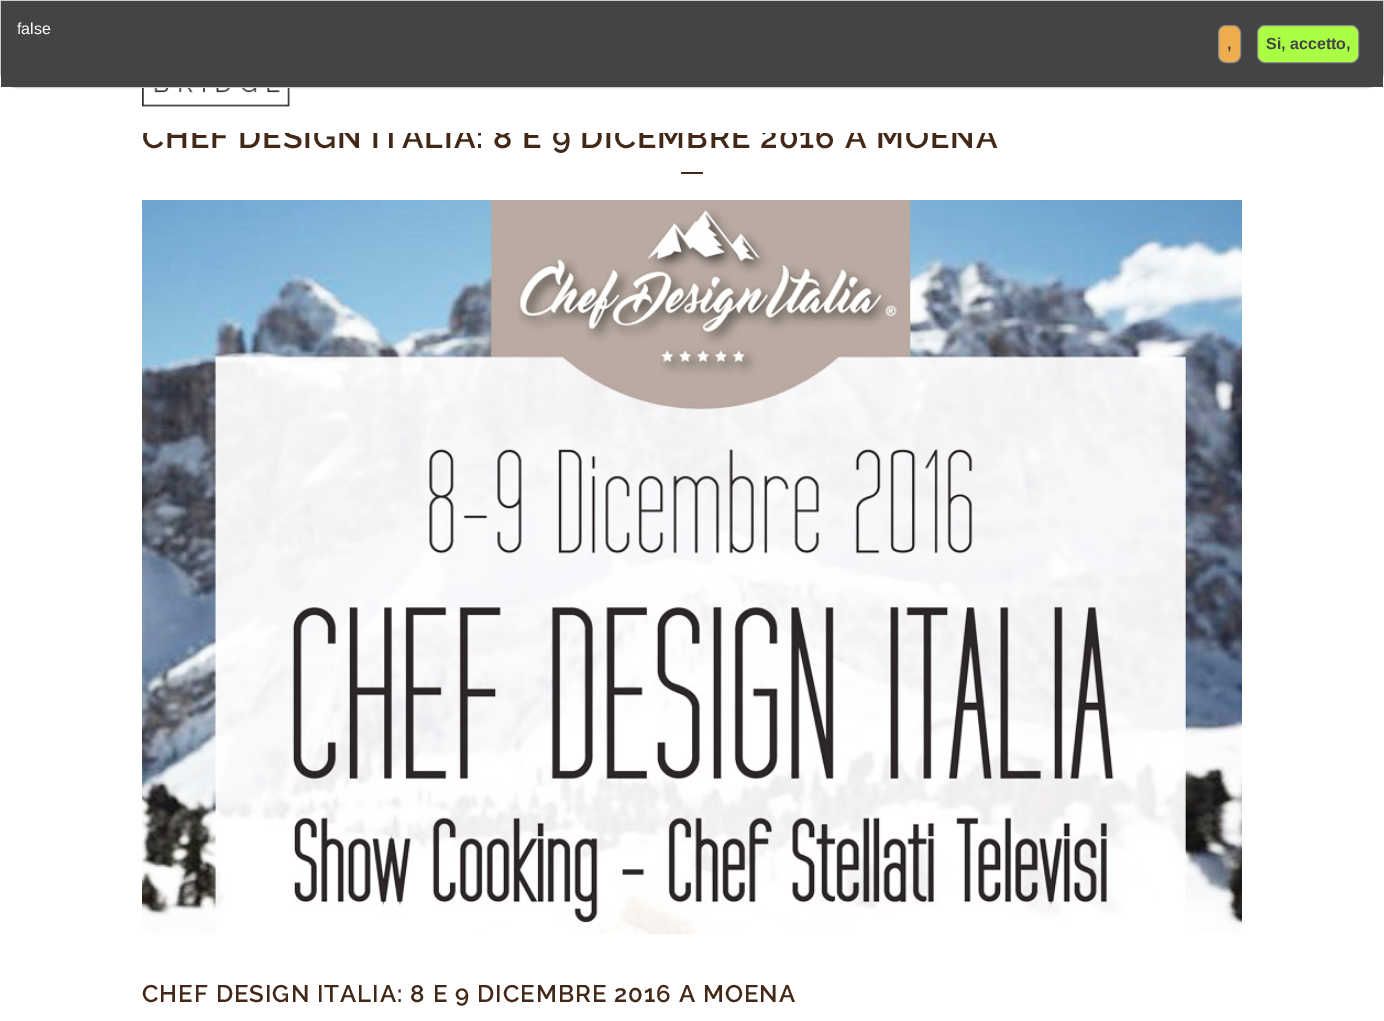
%!PS
<< /PageSize [1384 1021] >> setpagedevice
/mt/moveto load def
/li/lineto load def
/ct/curveto load def
/cp/closepath load def
/fl/fill load def
/st/stroke load def
/gs/gsave load def
/gr/grestore load def
/co { dup -16 bitshift 255 div exch dup -8 bitshift 255 and 255 div exch 255 and 255 div setrgbcolor } def
/fn { [ exch dup neg 0 0 3 -1 roll 0 0 ] selectfont } def
/tx { co fn moveto show } def
/bx { co rectfill } def
/rr { 5 dict begin { /r /h /w /y /x } { exch def } forall
  x r add y moveto x w add y 2 copy h add r arct x w add y h add x 1 index r arct
  x y h add x y r arct x y 2 copy exch w add exch r arct closepath end } def
/im { 5 dict begin { /h /w /y /x /name } { exch def } forall
  gsave x y translate w h scale
  w h 8 [w 0 0 h 0 0] name (r) file false 3 colorimage grestore end } def
0 1021 translate 1 -1 scale
4 setmiterlimit
0 0 1384 1021 16#FFFFFF bx
16#CCCCCC co
.5 .5 mt 1383.5 .5 li 1383.5 72 li 1383.5 80.5 1376.5 87.5 1368 87.5 ct 16 87.5 li 7.5 87.5 .5 80.5 .5 72 ct cp st
1 1 1382 86 16#444444 bx
16#F0AD4E co
1218.5 25.5 22 37 7.5 rr gs fl gr
16#888888 co
st
16#AAFF44 co
1257.5 25.5 101 37 7.5 rr gs fl gr
16#888888 co
st
(media/1.raw) 142 88 148 19 im
681 172 22 2 16#432817 bx
(media/2.raw) 142 200 1100 734 im
(false) 17 34 /LiberationSans-Regular 16 16#FFFFFF tx
(,) 1227 49 /LiberationSans-Bold 16 16#444444 tx
(Si, accetto,) 1266 49 /LiberationSans-Bold 16 16#444444 tx
/Raleway-SemiBold 32 fn
16#432817 co
142 148 mt 1 0 (CHEF DESIGN ITALIA: 8 E 9 DICEMBRE 2016 A MOENA) ashow
143 125 849 8 16#FFFFFF bx
/Raleway-SemiBold 24 fn
16#432817 co
142 1002 mt 1 0 (CHEF DESIGN ITALIA: 8 E 9 DICEMBRE 2016 A MOENA) ashow
showpage
